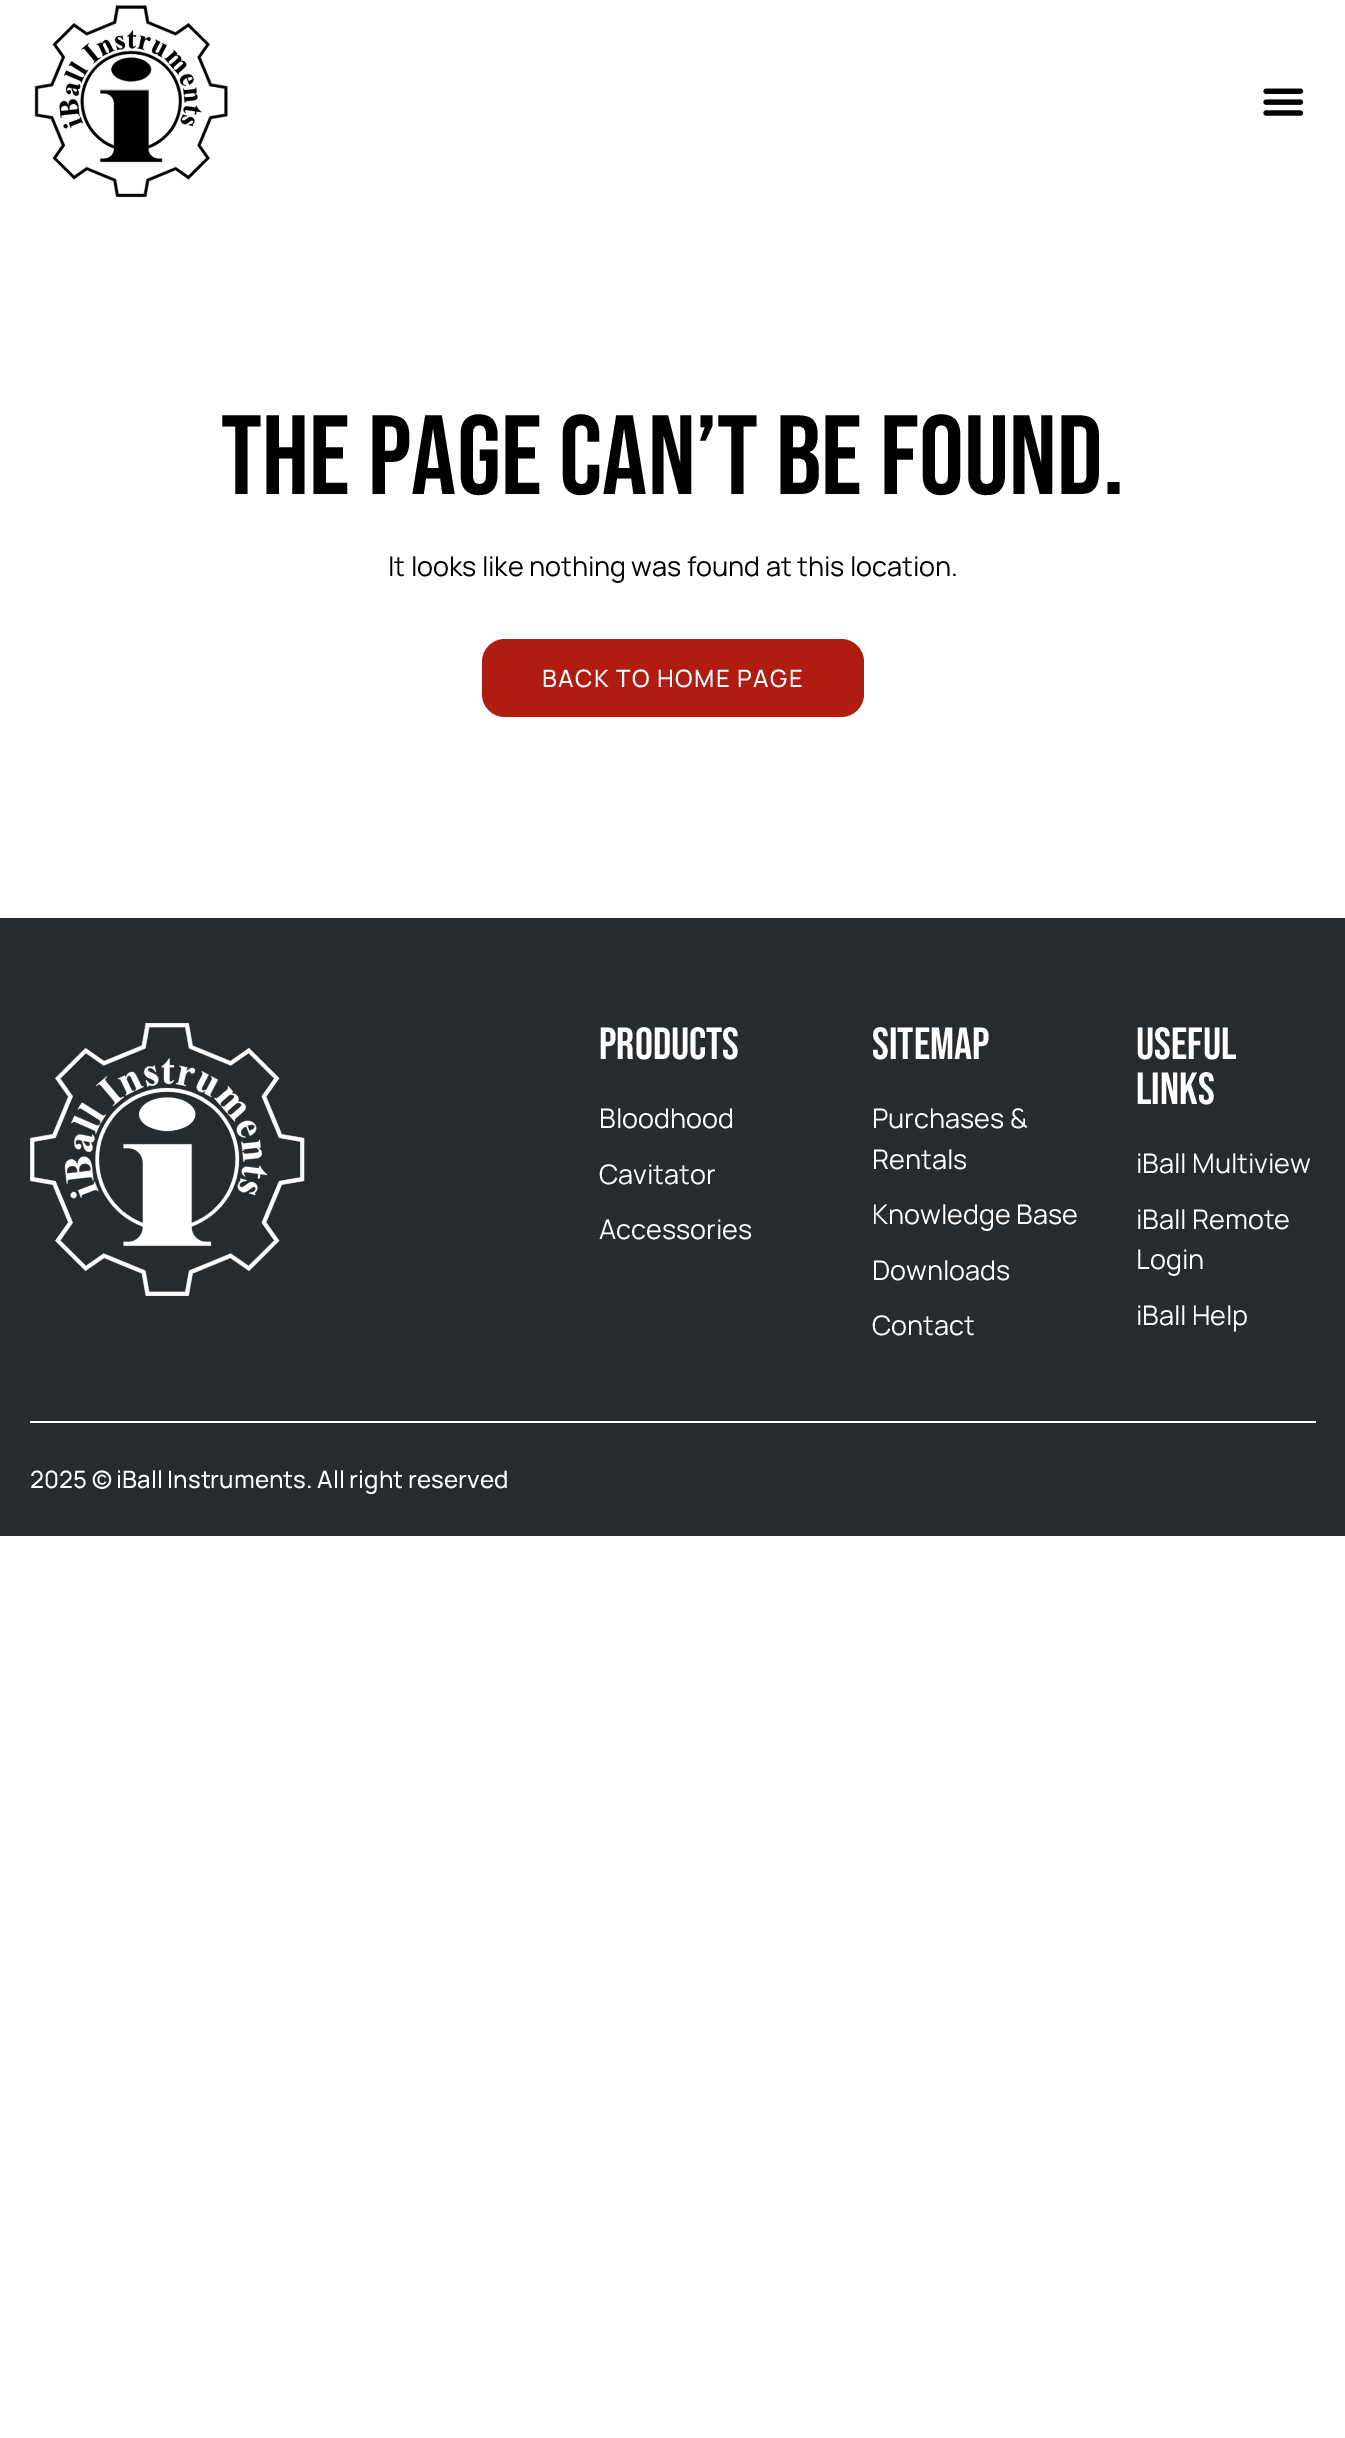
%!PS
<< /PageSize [1345 2438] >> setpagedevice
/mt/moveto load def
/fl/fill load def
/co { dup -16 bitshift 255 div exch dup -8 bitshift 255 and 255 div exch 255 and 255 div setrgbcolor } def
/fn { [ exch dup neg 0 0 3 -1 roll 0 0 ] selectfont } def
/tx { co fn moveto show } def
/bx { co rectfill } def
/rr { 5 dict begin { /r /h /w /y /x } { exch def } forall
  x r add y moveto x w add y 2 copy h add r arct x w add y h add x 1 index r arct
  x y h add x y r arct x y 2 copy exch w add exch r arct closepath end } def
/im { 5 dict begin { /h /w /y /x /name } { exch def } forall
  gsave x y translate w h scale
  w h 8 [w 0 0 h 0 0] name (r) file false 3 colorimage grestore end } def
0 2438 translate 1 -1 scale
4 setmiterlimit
0 0 1345 2438 16#FFFFFF bx
(media/1.raw) 34 5 194 193 im
(media/2.raw) 1263 88 41 28 im
16#B01C11 co
482 639 382 78 23 rr fl
0 918 1345 618 16#282B2E bx
(media/3.raw) 30 1023 275 273 im
30 1421 1286 2 16#FFFFFF bx
(The page can’t be found.) 221 494 /BebasNeue-Regular 112.5 16#000000 tx
(It looks like nothing was found at this location.) 388 576 /Manrope-Regular 27 16#000000 tx
/Manrope-Medium 24 fn
16#FFFFFF co
542 687 mt 1.4 0 (BACK TO HOME PAGE) ashow
(Products) 599 1059 /BebasNeue-Regular 45 16#FFFFFF tx
(Bloodhood) 599 1128 /Manrope-Regular 27 16#FFFFFF tx
(Cavitator) 599 1184 /Manrope-Regular 27 16#FFFFFF tx
(Accessories) 599 1239 /Manrope-Regular 27 16#FFFFFF tx
(Sitemap) 872 1059 /BebasNeue-Regular 45 16#FFFFFF tx
(Purchases &) 872 1128 /Manrope-Regular 27 16#FFFFFF tx
(Rentals) 872 1169 /Manrope-Regular 27 16#FFFFFF tx
(Knowledge Base) 872 1224 /Manrope-Regular 27 16#FFFFFF tx
(Downloads) 872 1280 /Manrope-Regular 27 16#FFFFFF tx
(Contact) 872 1335 /Manrope-Regular 27 16#FFFFFF tx
(Useful) 1136 1059 /BebasNeue-Regular 45 16#FFFFFF tx
(Links) 1136 1104 /BebasNeue-Regular 45 16#FFFFFF tx
(iBall Multiview) 1136 1173 /Manrope-Regular 27 16#FFFFFF tx
(iBall Remote) 1136 1229 /Manrope-Regular 27 16#FFFFFF tx
(Login) 1136 1269 /Manrope-Regular 27 16#FFFFFF tx
(iBall Help) 1136 1325 /Manrope-Regular 27 16#FFFFFF tx
(2025 © iBall Instruments. All right reserved) 30 1488 /Manrope-Medium 24 16#FFFFFF tx
showpage
